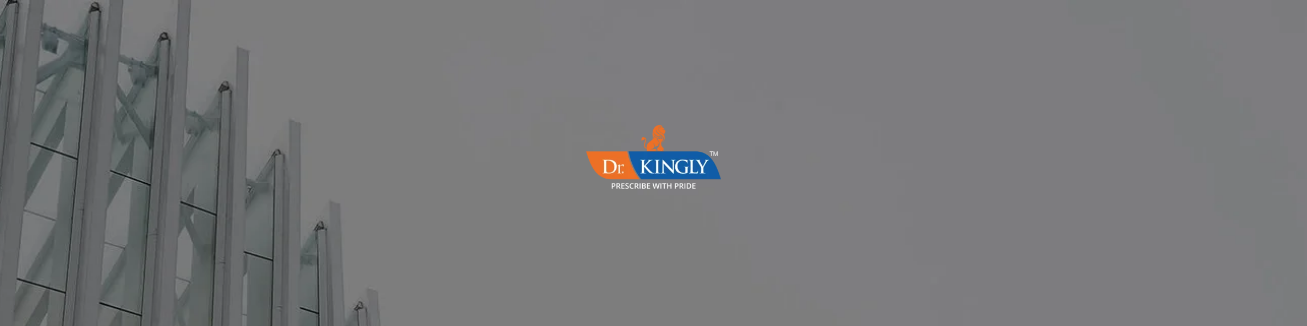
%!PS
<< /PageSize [1307 326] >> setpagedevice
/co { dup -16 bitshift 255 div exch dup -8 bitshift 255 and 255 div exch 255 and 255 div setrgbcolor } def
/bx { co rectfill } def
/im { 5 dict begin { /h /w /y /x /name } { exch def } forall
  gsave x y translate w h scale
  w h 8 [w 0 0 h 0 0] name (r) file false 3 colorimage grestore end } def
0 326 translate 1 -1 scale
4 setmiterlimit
0 0 1307 326 16#FFFFFF bx
(media/1.raw) 0 0 1307 326 im
(media/2.raw) 586 125 135 64 im
showpage
